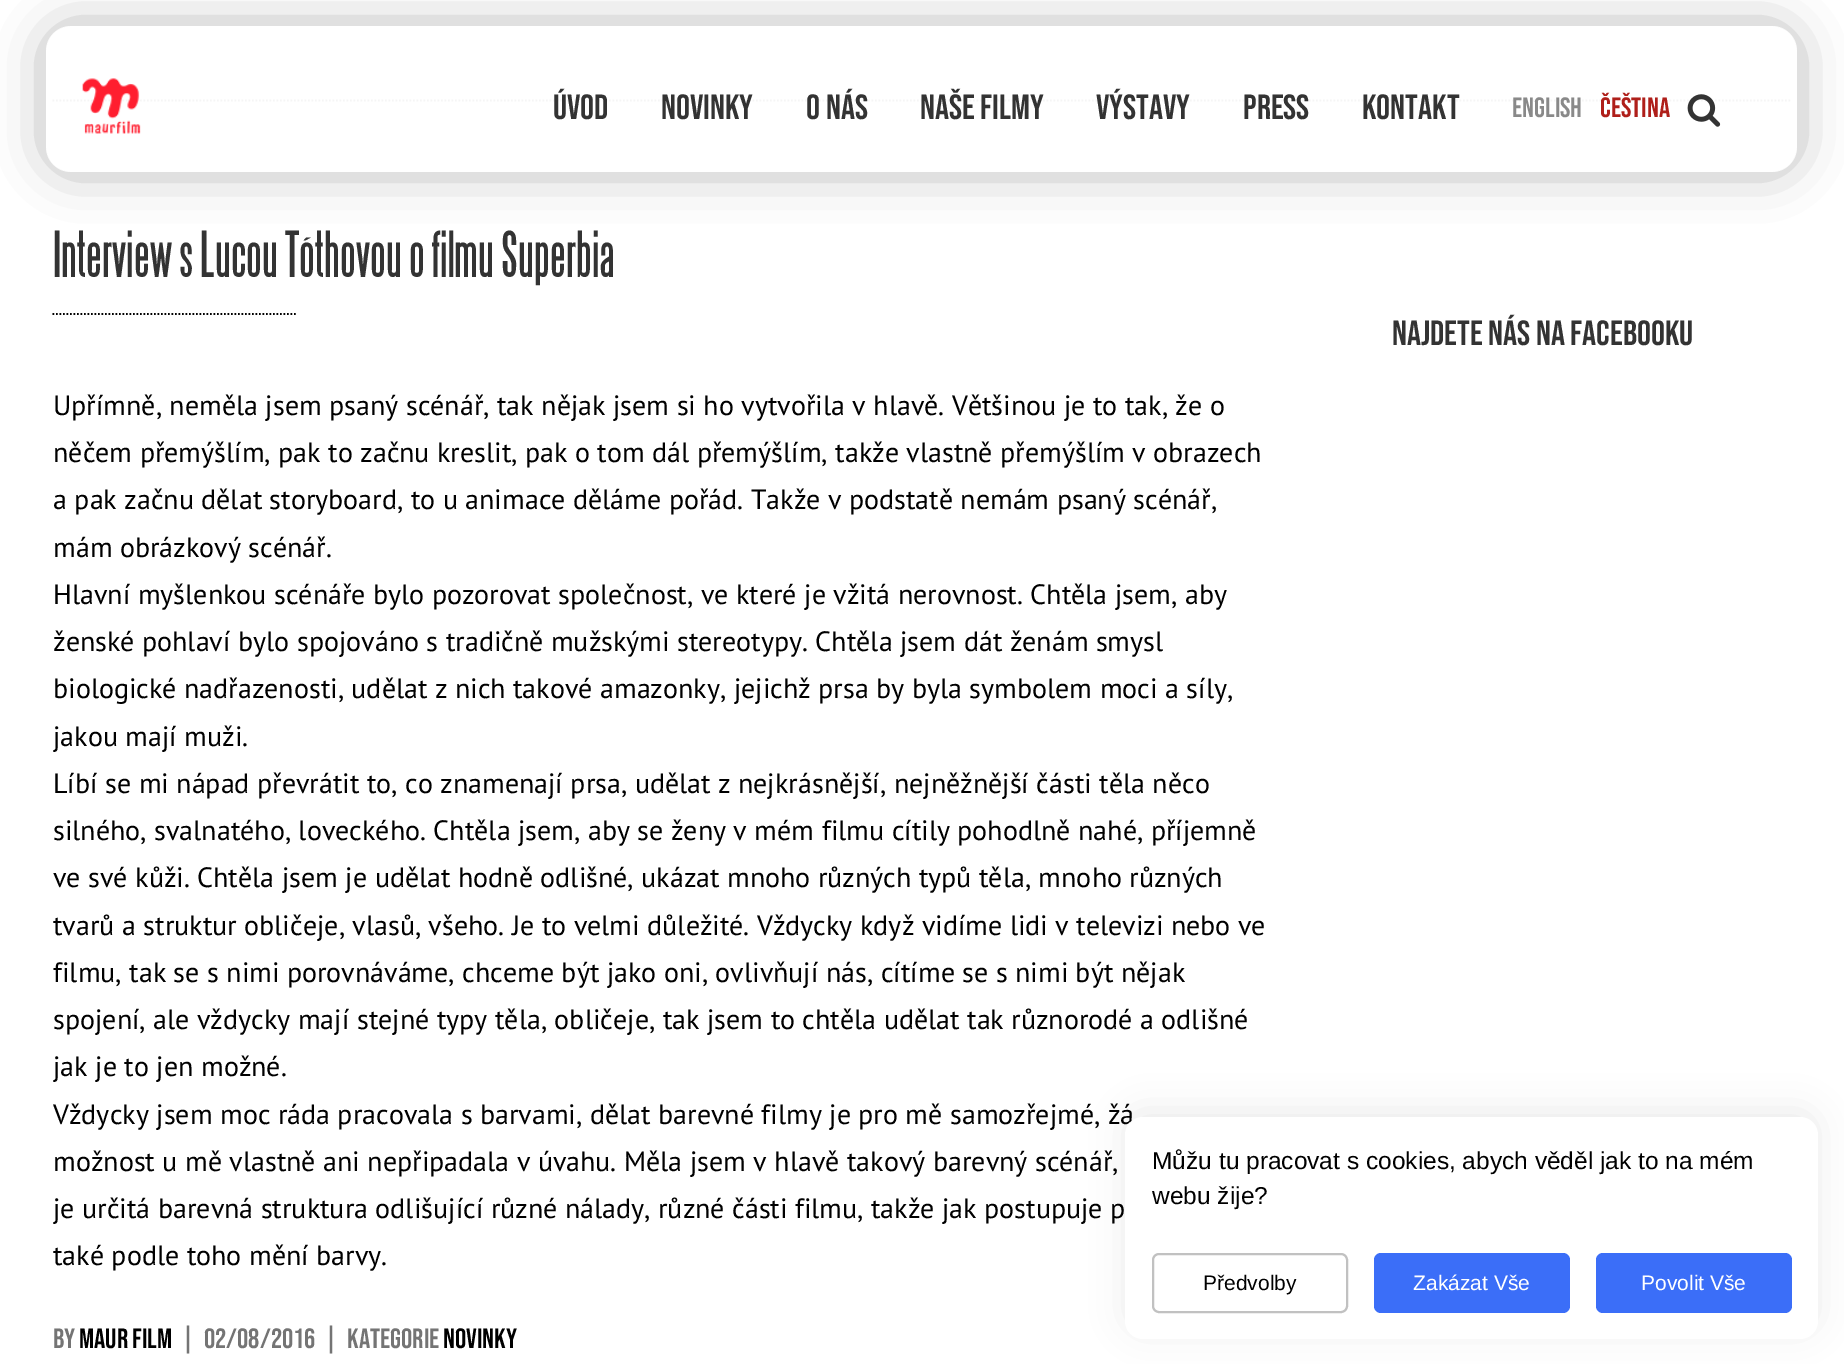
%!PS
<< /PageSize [1844 1364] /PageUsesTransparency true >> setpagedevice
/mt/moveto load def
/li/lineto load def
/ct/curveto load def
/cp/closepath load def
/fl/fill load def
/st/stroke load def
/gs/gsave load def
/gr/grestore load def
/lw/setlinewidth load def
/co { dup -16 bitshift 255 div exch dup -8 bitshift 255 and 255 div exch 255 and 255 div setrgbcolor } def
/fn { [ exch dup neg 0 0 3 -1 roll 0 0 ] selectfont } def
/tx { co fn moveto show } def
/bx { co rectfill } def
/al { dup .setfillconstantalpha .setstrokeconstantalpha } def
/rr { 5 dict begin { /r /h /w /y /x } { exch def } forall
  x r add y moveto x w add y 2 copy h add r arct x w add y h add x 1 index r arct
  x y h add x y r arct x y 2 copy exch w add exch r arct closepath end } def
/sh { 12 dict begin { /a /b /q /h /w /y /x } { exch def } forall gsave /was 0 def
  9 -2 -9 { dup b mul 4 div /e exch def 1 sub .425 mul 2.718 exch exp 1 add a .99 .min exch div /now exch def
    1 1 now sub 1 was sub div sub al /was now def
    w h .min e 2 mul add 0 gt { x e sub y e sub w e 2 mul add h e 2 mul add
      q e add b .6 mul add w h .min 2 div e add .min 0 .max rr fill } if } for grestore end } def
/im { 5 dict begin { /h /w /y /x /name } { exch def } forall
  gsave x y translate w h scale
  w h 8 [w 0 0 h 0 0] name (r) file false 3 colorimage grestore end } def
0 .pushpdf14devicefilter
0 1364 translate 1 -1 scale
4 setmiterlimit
0 0 1844 1364 16#FFFFFF bx
16#A7A7A7 co
1.8 lw
[1.75 1.75] 0 setdash
52.5 100.5 mt 1792 100.5 li st
gs
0 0 mt 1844 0 li 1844 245 li 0 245 li cp 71 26 mt 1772 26 li 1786 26 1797 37 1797 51 ct 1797 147 li 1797 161 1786 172 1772 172 ct 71 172 li 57 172 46 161 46 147 ct 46 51 li 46 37 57 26 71 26 ct cp eoclip newpath
16#000000 co
54 35 1735 128 16 27 .4 sh
gr
0.89 al
16#FFFFFF co
46 26 1751 146 25 rr fl
1 al
(media/1.raw) 82 78 59 56 im
(media/2.raw) 1687 94 34 33 im
16#000000 co
52.5 314 mt 297.5 314 li st
1125 1110 693 222 18 16.5 .07 sh
(ÚVOD) 553 119 /BebasNeue-Regular 35 16#333333 tx
(NOVINKY) 661 119 /BebasNeue-Regular 35 16#333333 tx
(O NÁS) 806 119 /BebasNeue-Regular 35 16#333333 tx
(NAŠE FILMY) 920 119 /BebasNeue-Regular 35 16#333333 tx
(VÝSTAVY) 1096 119 /BebasNeue-Regular 35 16#333333 tx
(PRESS) 1243 119 /BebasNeue-Regular 35 16#333333 tx
(KONTAKT) 1362 119 /BebasNeue-Regular 35 16#333333 tx
(English) 1512 117 /BebasNeue-Regular 28 16#898989 tx
(Čeština) 1600 117 /BebasNeue-Regular 28 16#AF1F1A tx
(Interview s Lucou Tóthovou o filmu Superbia) 53 277 /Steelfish-Regular 52.5 16#333333 tx
(Upřímně, neměla jsem psaný scénář, tak nějak jsem si ho vytvořila v hlavě. Většinou je to tak, že o) 53 415 /PTSans-Regular 28 16#000000 tx
(něčem přemýšlím, pak to začnu kreslit, pak o tom dál přemýšlím, takže vlastně přemýšlím v obrazech) 53 462 /PTSans-Regular 28 16#000000 tx
(a pak začnu dělat storyboard, to u animace děláme pořád. Takže v podstatě nemám psaný scénář,) 53 509 /PTSans-Regular 28 16#000000 tx
(mám obrázkový scénář.) 53 557 /PTSans-Regular 28 16#000000 tx
(Hlavní myšlenkou scénáře bylo pozorovat společnost, ve které je vžitá nerovnost. Chtěla jsem, aby) 53 604 /PTSans-Regular 28 16#000000 tx
(ženské pohlaví bylo spojováno s tradičně mužskými stereotypy. Chtěla jsem dát ženám smysl) 53 651 /PTSans-Regular 28 16#000000 tx
(biologické nadřazenosti, udělat z nich takové amazonky, jejichž prsa by byla symbolem moci a síly,) 53 698 /PTSans-Regular 28 16#000000 tx
(jakou mají muži.) 53 746 /PTSans-Regular 28 16#000000 tx
(Líbí se mi nápad převrátit to, co znamenají prsa, udělat z nejkrásnější, nejněžnější části těla něco) 53 793 /PTSans-Regular 28 16#000000 tx
(silného, svalnatého, loveckého. Chtěla jsem, aby se ženy v mém filmu cítily pohodlně nahé, příjemně) 53 840 /PTSans-Regular 28 16#000000 tx
(ve své kůži. Chtěla jsem je udělat hodně odlišné, ukázat mnoho různých typů těla, mnoho různých) 53 887 /PTSans-Regular 28 16#000000 tx
(tvarů a struktur obličeje, vlasů, všeho. Je to velmi důležité. Vždycky když vidíme lidi v televizi nebo ve) 53 935 /PTSans-Regular 28 16#000000 tx
(filmu, tak se s nimi porovnáváme, chceme být jako oni, ovlivňují nás, cítíme se s nimi být nějak) 53 982 /PTSans-Regular 28 16#000000 tx
(spojení, ale vždycky mají stejné typy těla, obličeje, tak jsem to chtěla udělat tak různorodé a odlišné) 53 1029 /PTSans-Regular 28 16#000000 tx
(jak je to jen možné.) 53 1076 /PTSans-Regular 28 16#000000 tx
(Vždycky jsem moc ráda pracovala s barvami, dělat barevné filmy je pro mě samozřejmé, žá) 53 1124 /PTSans-Regular 28 16#000000 tx
(možnost u mě vlastně ani nepřipadala v úvahu. Měla jsem v hlavě takový barevný scénář,) 53 1171 /PTSans-Regular 28 16#000000 tx
(je určitá barevná struktura odlišující různé nálady, různé části filmu, takže jak postupuje p) 53 1218 /PTSans-Regular 28 16#000000 tx
(také podle toho mění barvy.) 53 1265 /PTSans-Regular 28 16#000000 tx
(BY) 53 1348 /BebasNeue-Regular 28 16#747474 tx
(MAUR FILM) 79 1348 /BebasNeue-Regular 28 16#000000 tx
(|) 181 1348 /BebasNeue-Regular 28 16#747474 tx
(02/08/2016) 204 1348 /BebasNeue-Regular 28 16#747474 tx
(|) 324 1348 /BebasNeue-Regular 28 16#747474 tx
(KATEGORIE) 347 1348 /BebasNeue-Regular 28 16#747474 tx
(NOVINKY) 443 1348 /BebasNeue-Regular 28 16#000000 tx
(Najdete nás na Facebooku) 1392 345 /BebasNeue-Regular 35 16#333333 tx
16#FFFFFF co
1125 1117 693 222 18 rr fl
(Můžu tu pracovat s cookies, abych věděl jak to na mém) 1152 1169 /LiberationSans-Regular 24.5 16#000000 tx
(webu žije?) 1152 1204 /LiberationSans-Regular 24.5 16#000000 tx
16#C1C1C1 co
2 lw
[] 0 setdash
1153 1254 194 58 6 rr st
(Předvolby) 1203 1290 /LiberationSans-Regular 21 16#000000 tx
16#3B6EF8 co
1374 1253 196 60 7 rr fl
(Zakázat Vše) 1413 1290 /LiberationSans-Regular 21 16#FFFFFF tx
16#3B6EF8 co
1596 1253 196 60 7 rr fl
(Povolit Vše) 1641 1290 /LiberationSans-Regular 21 16#FFFFFF tx
.poppdf14devicefilter showpage
